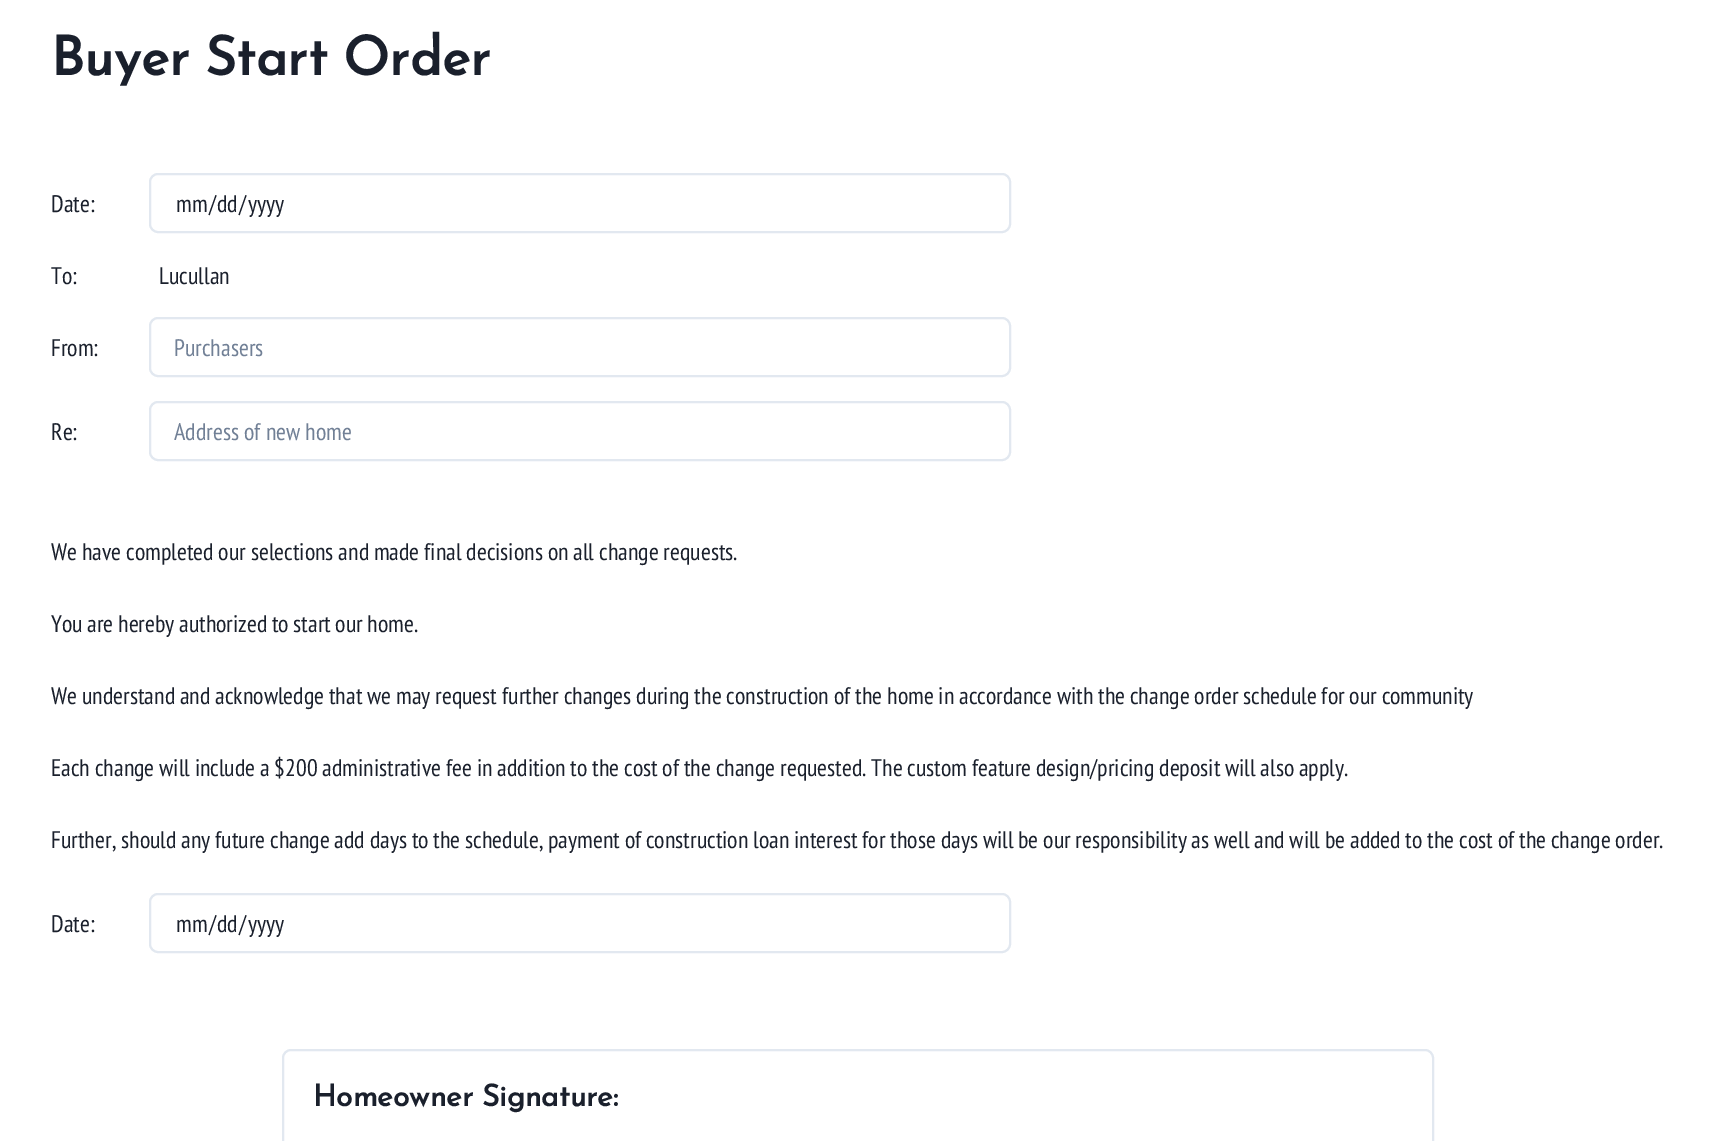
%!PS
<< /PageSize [1714 1141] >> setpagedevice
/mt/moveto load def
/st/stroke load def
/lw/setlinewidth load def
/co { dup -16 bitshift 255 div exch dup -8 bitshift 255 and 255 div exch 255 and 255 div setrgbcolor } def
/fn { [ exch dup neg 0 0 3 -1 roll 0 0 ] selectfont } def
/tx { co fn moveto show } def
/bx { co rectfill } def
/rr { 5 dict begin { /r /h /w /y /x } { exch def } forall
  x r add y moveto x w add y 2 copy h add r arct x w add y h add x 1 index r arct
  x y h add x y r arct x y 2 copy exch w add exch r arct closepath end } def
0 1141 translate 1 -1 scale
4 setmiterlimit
0 0 1714 1141 16#FFFFFF bx
16#E2E8F0 co
2 lw
150 174 860 58 8 rr st
150 318 860 58 8 rr st
150 402 860 58 8 rr st
150 894 860 58 8 rr st
283 1050 1150 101 8 rr st
/JosefinSans-Bold 54 fn
16#1A202C co
51 75 mt -1 0 32 (Buyer Start Order) widthshow
(Date:) 51 212 /PTSansNarrow-Regular 24 16#1A202C tx
(mm) 176 212 /PTSansNarrow-Regular 24 16#1A202C tx
(/) 209 212 /PTSansNarrow-Regular 24 16#1A202C tx
(dd) 217 212 /PTSansNarrow-Regular 24 16#1A202C tx
(/) 239 212 /PTSansNarrow-Regular 24 16#1A202C tx
(yyyy) 248 212 /PTSansNarrow-Regular 24 16#1A202C tx
(To:) 51 284 /PTSansNarrow-Regular 24 16#1A202C tx
(Lucullan) 159 284 /PTSansNarrow-Regular 24 16#1A202C tx
(From:) 51 356 /PTSansNarrow-Regular 24 16#1A202C tx
(Purchasers) 174 356 /PTSansNarrow-Regular 24 16#718096 tx
(Re:) 51 440 /PTSansNarrow-Regular 24 16#1A202C tx
(Address of new home) 174 440 /PTSansNarrow-Regular 24 16#718096 tx
16#1A202C co
51 560 mt -.2 0 32 (We have completed our selections and made final decisions on all change requests.) widthshow
51 632 mt -.5 0 32 (You are hereby authorized to start our home.) widthshow
51 704 mt -.2 0 32 (We understand and acknowledge that we may request further changes during the construction of the home in accordance with the change order schedule for our community) widthshow
51 776 mt -.25 0 32 (Each change will include a $200 administrative fee in addition to the cost of the change requested. The custom feature design/pricing deposit will also apply.) widthshow
51 848 mt -.25 0 32 (Further, should any future change add days to the schedule, payment of construction loan interest for those days will be our responsibility as well and will be added to the cost of the change order.) widthshow
(Date:) 51 932 /PTSansNarrow-Regular 24 16#1A202C tx
(mm) 176 932 /PTSansNarrow-Regular 24 16#1A202C tx
(/) 209 932 /PTSansNarrow-Regular 24 16#1A202C tx
(dd) 217 932 /PTSansNarrow-Regular 24 16#1A202C tx
(/) 239 932 /PTSansNarrow-Regular 24 16#1A202C tx
(yyyy) 248 932 /PTSansNarrow-Regular 24 16#1A202C tx
/JosefinSans-Bold 30 fn
313 1106 mt -1 0 32 (Homeowner Signature:) widthshow
showpage
